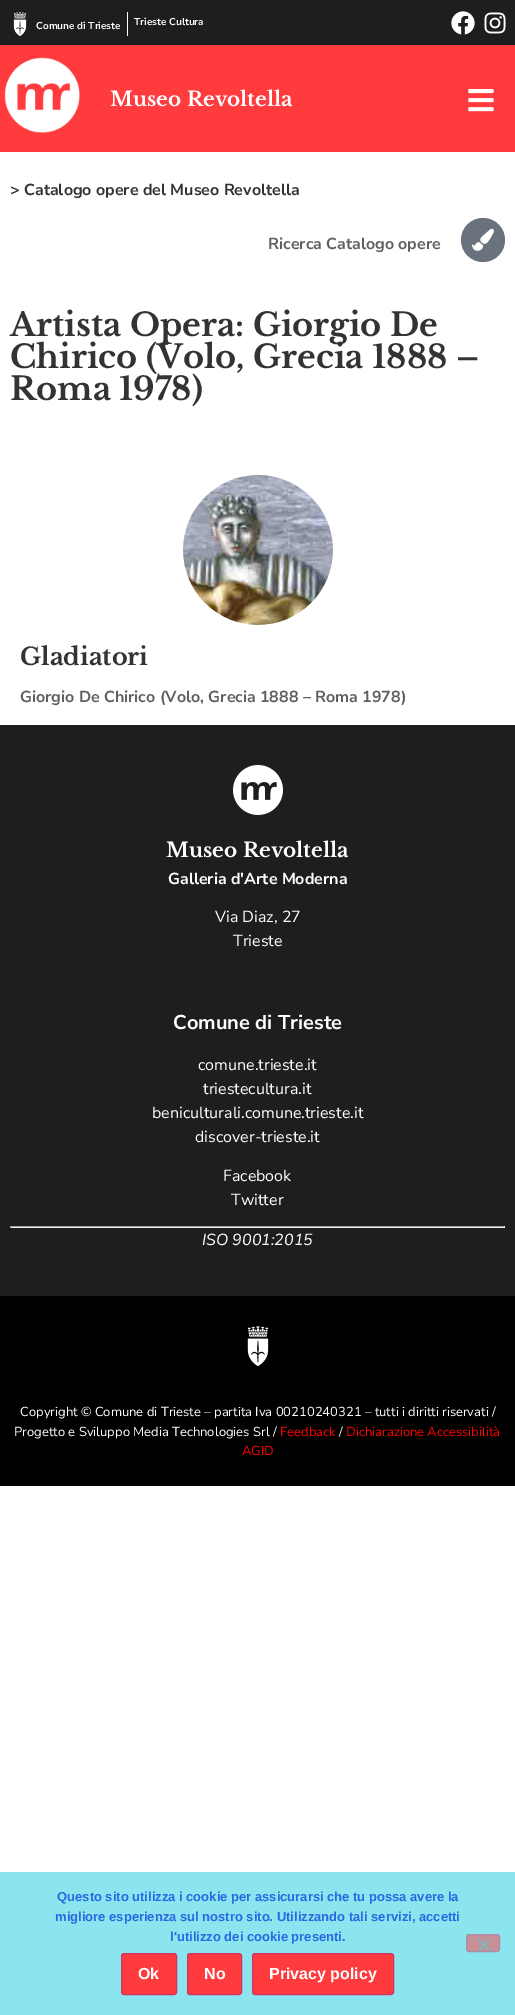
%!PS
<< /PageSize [515 2015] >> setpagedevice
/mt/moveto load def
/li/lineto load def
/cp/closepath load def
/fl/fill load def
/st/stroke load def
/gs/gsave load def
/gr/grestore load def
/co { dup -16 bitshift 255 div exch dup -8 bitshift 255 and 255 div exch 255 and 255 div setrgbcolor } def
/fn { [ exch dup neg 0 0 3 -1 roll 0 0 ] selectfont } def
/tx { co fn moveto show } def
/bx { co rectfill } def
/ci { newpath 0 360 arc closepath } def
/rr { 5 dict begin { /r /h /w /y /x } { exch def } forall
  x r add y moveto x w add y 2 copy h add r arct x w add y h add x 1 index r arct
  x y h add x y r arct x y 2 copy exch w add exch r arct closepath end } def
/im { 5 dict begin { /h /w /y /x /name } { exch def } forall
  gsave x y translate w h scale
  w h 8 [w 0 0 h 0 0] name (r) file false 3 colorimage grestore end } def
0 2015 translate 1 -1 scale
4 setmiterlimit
0 0 515 2015 16#FFFFFF bx
0 0 515 45 16#1E1E1E bx
127 12 1 24 16#FFFFFF bx
(media/1.raw) 13 12 14 24 im
(media/2.raw) 451 11 24 24 im
(media/3.raw) 484 12 22 22 im
0 45 515 107 16#FF3B3D bx
(media/4.raw) 4 57 76 76 im
(media/5.raw) 468 89 26 23 im
16#69727D co
483 240 22 ci fl
(media/6.raw) 472 228 22 23 im
(media/7.raw) 183 475 150 150 im
0 725 515 571 16#1E1E1E bx
(media/8.raw) 233 765 50 50 im
10 1226 495 1 16#9F9F9F bx
504 1226 1 2 16#EEEEEE bx
10 1227 495 1 16#EEEEEE bx
10 1226 1 2 16#9F9F9F bx
0 1296 515 190 16#000000 bx
(media/9.raw) 247 1326 22 40 im
0 1872 515 143 16#8BE5EF bx
16#C59096 co
466.5 1934.5 33 17 2.5 rr gs fl gr
16#AC8CAB co
st
16#86B3B8 co
488.5 1939 mt 490 1940.5 li 479.5 1951 li 478 1949.5 li cp fl
478 1940.5 mt 479.5 1939 li 490 1949.5 li 488.5 1951 li cp fl
16#FF3B3D co
121.5 1953.5 55 41 2.5 rr gs fl gr
16#CC3366 co
st
16#FF3B3D co
187.5 1953.5 54 41 2.5 rr gs fl gr
16#CC3366 co
st
16#FF3B3D co
252.5 1953.5 141 41 2.5 rr gs fl gr
16#CC3366 co
st
(Comune di Trieste) 36 29 /NunitoSans-Bold 10 16#FFFFFF tx
(Trieste Cultura) 134 25 /NunitoSans-Bold 10 16#FFFFFF tx
(Museo Revoltella) 110 106 /LibreBaskerville-Bold 20 16#FFFFFF tx
(> Catalogo opere del Museo Revoltella) 10 195 /NunitoSans-Bold 16 16#333333 tx
(Ricerca Catalogo opere) 268 249 /NunitoSans-Bold 16 16#606060 tx
(Artista Opera: Giorgio De) 10 336 /LibreBaskerville-Bold 32 16#333333 tx
(Chirico \(Volo, Grecia 1888 –) 10 368 /LibreBaskerville-Bold 32 16#333333 tx
(Roma 1978\)) 10 400 /LibreBaskerville-Bold 32 16#333333 tx
(Gladiatori) 20 665 /LibreBaskerville-Bold 24 16#333333 tx
(Giorgio De Chirico \(Volo, Grecia 1888 – Roma 1978\)) 20 702 /NunitoSans-Bold 16 16#606060 tx
(Museo Revoltella) 166 857 /LibreBaskerville-Bold 20 16#FFFFFF tx
(Galleria d'Arte Moderna) 168 884 /NunitoSans-Bold 16 16#FFFFFF tx
(Via Diaz, 27) 215 922 /NunitoSans-Regular 16 16#FFFFFF tx
(Trieste) 233 946 /NunitoSans-Regular 16 16#FFFFFF tx
(Comune di Trieste) 173 1029 /NunitoSans-Bold 20 16#FFFFFF tx
(comune.trieste.it) 198 1070 /NunitoSans-Regular 16 16#FFFFFF tx
(triestecultura.it) 203 1094 /NunitoSans-Regular 16 16#FFFFFF tx
(beniculturali.comune.trieste.it) 152 1118 /NunitoSans-Regular 16 16#FFFFFF tx
(discover-trieste.it) 195 1142 /NunitoSans-Regular 16 16#FFFFFF tx
(Facebook) 223 1181 /NunitoSans-Regular 16 16#FFFFFF tx
(Twitter) 231 1205 /NunitoSans-Regular 16 16#FFFFFF tx
(ISO 9001:2015) 202 1245 /NunitoSans-Italic 16 16#FFFFFF tx
(Copyright © Comune di Trieste – partita Iva 00210240321 – tutti i diritti riservati /) 20 1416 /NunitoSans-Regular 13 16#FFFFFF tx
(Progetto e Sviluppo Media Technologies Srl /) 14 1436 /NunitoSans-Regular 13 16#FFFFFF tx
(Feedback) 280 1436 /NunitoSans-Regular 13 16#FF0000 tx
(/) 339 1436 /NunitoSans-Regular 13 16#FFFFFF tx
(Dichiarazione Accessibilità) 346 1436 /NunitoSans-Regular 13 16#FF0000 tx
(AGID) 242 1455 /NunitoSans-Regular 13 16#FF0000 tx
(Questo sito utilizza i cookie per assicurarsi che tu possa avere la) 57 1901 /LiberationSans-Bold 13 16#2B68E2 tx
(migliore esperienza sul nostro sito. Utilizzando tali servizi, accetti) 55 1921 /LiberationSans-Bold 13 16#2B68E2 tx
(l'utilizzo dei cookie presenti.) 170 1941 /LiberationSans-Bold 13 16#2B68E2 tx
(Ok) 138 1979 /LiberationSans-Bold 16 16#FFFFFF tx
(No) 204 1979 /LiberationSans-Bold 16 16#FFFFFF tx
(Privacy policy) 269 1979 /LiberationSans-Bold 16 16#FFFFFF tx
showpage
